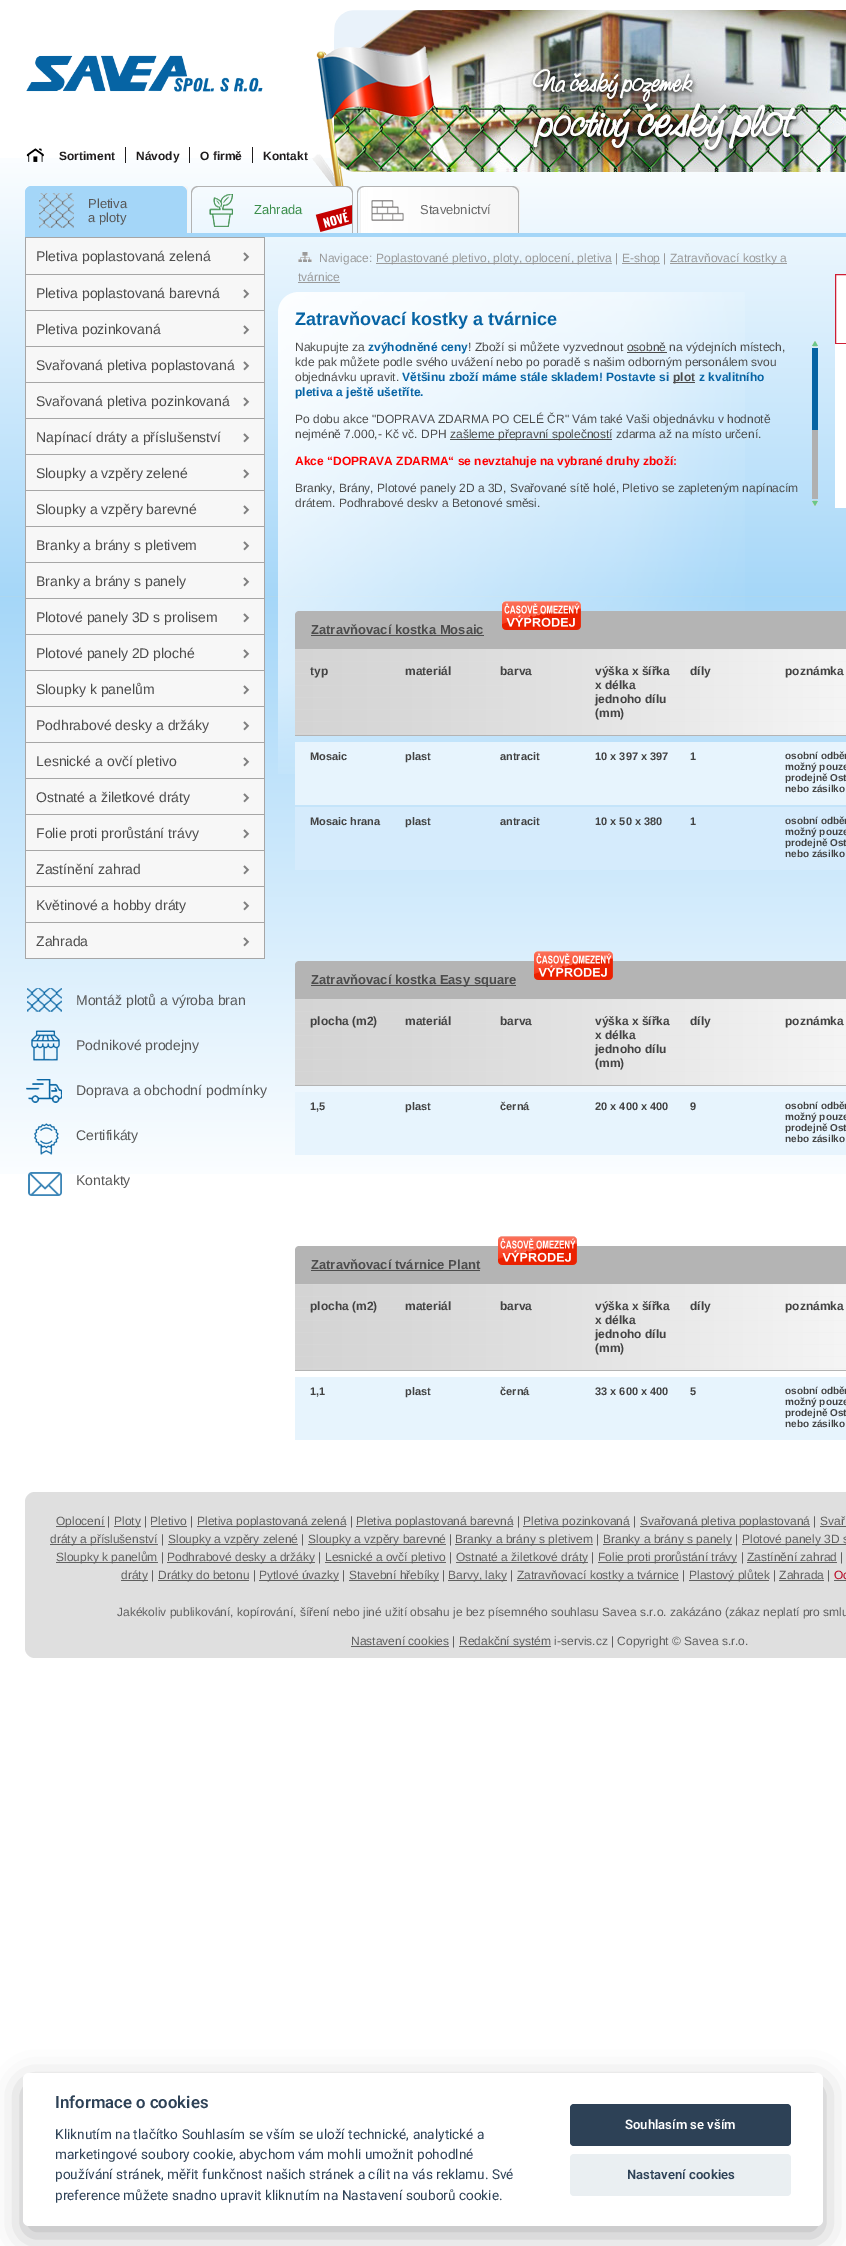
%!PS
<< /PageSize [846 2246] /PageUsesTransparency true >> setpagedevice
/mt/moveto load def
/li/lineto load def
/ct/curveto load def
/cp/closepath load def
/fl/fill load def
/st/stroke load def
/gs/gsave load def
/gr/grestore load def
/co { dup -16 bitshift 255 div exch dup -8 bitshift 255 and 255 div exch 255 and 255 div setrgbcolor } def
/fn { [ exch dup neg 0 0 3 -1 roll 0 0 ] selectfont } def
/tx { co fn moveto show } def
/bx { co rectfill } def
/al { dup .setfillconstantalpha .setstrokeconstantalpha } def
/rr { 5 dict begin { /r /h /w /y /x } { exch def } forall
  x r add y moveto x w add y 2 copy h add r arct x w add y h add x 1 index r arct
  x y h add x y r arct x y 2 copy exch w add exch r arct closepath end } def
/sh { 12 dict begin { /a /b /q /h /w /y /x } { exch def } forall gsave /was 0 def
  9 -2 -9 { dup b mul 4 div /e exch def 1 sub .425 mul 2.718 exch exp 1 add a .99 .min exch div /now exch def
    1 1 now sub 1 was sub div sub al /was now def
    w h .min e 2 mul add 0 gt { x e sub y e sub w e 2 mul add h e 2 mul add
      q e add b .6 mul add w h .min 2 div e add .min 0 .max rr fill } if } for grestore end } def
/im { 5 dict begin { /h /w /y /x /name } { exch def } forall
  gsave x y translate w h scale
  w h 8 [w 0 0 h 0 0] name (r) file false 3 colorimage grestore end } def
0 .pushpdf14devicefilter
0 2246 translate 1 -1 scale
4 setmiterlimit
0 0 846 2246 16#FFFFFF bx
(media/1.raw) 0 158 846 1016 im
(media/2.raw) 312 10 534 176 im
(media/3.raw) 26 55 237 37 im
(media/4.raw) 26 148 18 14 im
125 147 1 16 16#1F1C1D bx
189 147 1 16 16#1F1C1D bx
252 147 1 16 16#1F1C1D bx
25 233 821 4 16#A4D6F8 bx
(media/5.raw) 28 186 160 47 im
32 186 mt 180 186 li 184 186 187 189 187 193 ct 187 233 li 25 233 li 25 193 li 25 189 28 186 32 186 ct cp fl
(media/6.raw) 39 193 35 35 im
32 186 mt 180 186 li 184 186 187 189 187 193 ct 187 233 li 25 233 li 25 193 li 25 189 28 186 32 186 ct cp 32 187 mt 180 187 li 183 187 186 190 186 193 ct 186 233 li 26 233 li 26 193 li 26 190 29 187 32 187 ct cp eofill
(media/7.raw) 315 205 37 27 im
(media/8.raw) 209 194 24 33 im
16#B3B3B3 co
198 186 mt 346 186 li 350 186 353 189 353 193 ct 353 233 li 191 233 li 191 193 li 191 189 194 186 198 186 ct cp 198 187 mt 346 187 li 349 187 352 190 352 193 ct 352 233 li 192 233 li 192 193 li 192 190 195 187 198 187 ct cp eofill
(media/5.raw) 360 186 160 47 im
(media/9.raw) 371 200 33 21 im
364 186 mt 512 186 li 516 186 519 189 519 193 ct 519 233 li 357 233 li 357 193 li 357 189 360 186 364 186 ct cp 364 187 mt 512 187 li 515 187 518 190 518 193 ct 518 233 li 358 233 li 358 193 li 358 190 361 187 364 187 ct cp eofill
26 238 238 720 16#F7F7F7 bx
25 237 240 1 16#A6A6A6 bx
(media/10.raw) 243 252 7 10 im
265 237 mt 265 275 li 264 274 li 264 238 li cp fl
25 274 240 1 16#A6A6A6 bx
25 275 mt 25 237 li 26 238 li 26 274 li cp fl
(media/10.raw) 243 289 7 10 im
265 274 mt 265 311 li 264 310 li 264 275 li cp fl
25 310 240 1 16#A6A6A6 bx
25 311 mt 25 274 li 26 275 li 26 310 li cp fl
(media/10.raw) 243 325 7 10 im
265 310 mt 265 347 li 264 346 li 264 311 li cp fl
25 346 240 1 16#A6A6A6 bx
25 347 mt 25 310 li 26 311 li 26 346 li cp fl
(media/10.raw) 243 361 7 10 im
265 346 mt 265 383 li 264 382 li 264 347 li cp fl
25 382 240 1 16#A6A6A6 bx
25 383 mt 25 346 li 26 347 li 26 382 li cp fl
(media/10.raw) 243 397 7 10 im
265 382 mt 265 419 li 264 418 li 264 383 li cp fl
25 418 240 1 16#A6A6A6 bx
25 419 mt 25 382 li 26 383 li 26 418 li cp fl
(media/10.raw) 243 433 7 10 im
265 418 mt 265 455 li 264 454 li 264 419 li cp fl
25 454 240 1 16#A6A6A6 bx
25 455 mt 25 418 li 26 419 li 26 454 li cp fl
(media/10.raw) 243 469 7 10 im
265 454 mt 265 491 li 264 490 li 264 455 li cp fl
25 490 240 1 16#A6A6A6 bx
25 491 mt 25 454 li 26 455 li 26 490 li cp fl
(media/10.raw) 243 505 7 10 im
265 490 mt 265 527 li 264 526 li 264 491 li cp fl
25 526 240 1 16#A6A6A6 bx
25 527 mt 25 490 li 26 491 li 26 526 li cp fl
(media/10.raw) 243 541 7 10 im
265 526 mt 265 563 li 264 562 li 264 527 li cp fl
25 562 240 1 16#A6A6A6 bx
25 563 mt 25 526 li 26 527 li 26 562 li cp fl
(media/10.raw) 243 577 7 10 im
265 562 mt 265 599 li 264 598 li 264 563 li cp fl
25 598 240 1 16#A6A6A6 bx
25 599 mt 25 562 li 26 563 li 26 598 li cp fl
(media/10.raw) 243 613 7 10 im
265 598 mt 265 635 li 264 634 li 264 599 li cp fl
25 634 240 1 16#A6A6A6 bx
25 635 mt 25 598 li 26 599 li 26 634 li cp fl
(media/10.raw) 243 649 7 10 im
265 634 mt 265 671 li 264 670 li 264 635 li cp fl
25 670 240 1 16#A6A6A6 bx
25 671 mt 25 634 li 26 635 li 26 670 li cp fl
(media/10.raw) 243 685 7 10 im
265 670 mt 265 707 li 264 706 li 264 671 li cp fl
25 706 240 1 16#A6A6A6 bx
25 707 mt 25 670 li 26 671 li 26 706 li cp fl
(media/10.raw) 243 721 7 10 im
265 706 mt 265 743 li 264 742 li 264 707 li cp fl
25 742 240 1 16#A6A6A6 bx
25 743 mt 25 706 li 26 707 li 26 742 li cp fl
(media/10.raw) 243 757 7 10 im
265 742 mt 265 779 li 264 778 li 264 743 li cp fl
25 778 240 1 16#A6A6A6 bx
25 779 mt 25 742 li 26 743 li 26 778 li cp fl
(media/10.raw) 243 793 7 10 im
265 778 mt 265 815 li 264 814 li 264 779 li cp fl
25 814 240 1 16#A6A6A6 bx
25 815 mt 25 778 li 26 779 li 26 814 li cp fl
(media/10.raw) 243 829 7 10 im
265 814 mt 265 851 li 264 850 li 264 815 li cp fl
25 850 240 1 16#A6A6A6 bx
25 851 mt 25 814 li 26 815 li 26 850 li cp fl
(media/10.raw) 243 865 7 10 im
265 850 mt 265 887 li 264 886 li 264 851 li cp fl
25 886 240 1 16#A6A6A6 bx
25 887 mt 25 850 li 26 851 li 26 886 li cp fl
(media/10.raw) 243 901 7 10 im
265 886 mt 265 923 li 264 922 li 264 887 li cp fl
25 922 240 1 16#A6A6A6 bx
25 923 mt 25 886 li 26 887 li 26 922 li cp fl
(media/10.raw) 243 937 7 10 im
265 922 mt 265 959 li 264 958 li 264 923 li cp fl
25 958 240 1 16#A6A6A6 bx
25 959 mt 25 922 li 26 923 li 26 958 li cp fl
(media/11.raw) 26 988 36 208 im
(media/12.raw) 298 252 14 10 im
376 263 236 1 16#9A9A9A bx
622 263 38 1 16#9A9A9A bx
670 263 117 1 16#9A9A9A bx
298 282 42 1 16#9A9A9A bx
(media/13.raw) 278 292 467 482 im
627 352 40 1 16#4C4C4C bx
673 382 22 1 16#4C4C4C bx
450 439 162 1 16#4C4C4C bx
(media/14.raw) 812 341 6 6 im
812 430 6 69 16#B0B0B0 bx
812 348 6 82 16#0664A4 bx
(media/15.raw) 812 500 6 6 im
16#B4B4B4 co
299 611 mt 846 611 li 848 611 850 613 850 615 ct 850 649 li 295 649 li 295 615 li 295 613 297 611 299 611 ct cp fl
311 635 173 1 16#4C4C4C bx
(media/16.raw) 502 601 79 29 im
(media/17.raw) 295 649 551 86 im
295 735 551 1 16#B4B4B4 bx
295 742 551 63 16#E7F4FD bx
295 807 551 63 16#D5EBFC bx
16#B4B4B4 co
299 961 mt 846 961 li 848 961 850 963 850 965 ct 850 999 li 295 999 li 295 965 li 295 963 297 961 299 961 ct cp fl
311 985 205 1 16#4C4C4C bx
(media/18.raw) 534 951 79 29 im
(media/17.raw) 295 999 551 86 im
295 1085 551 1 16#B4B4B4 bx
295 1092 551 63 16#E7F4FD bx
16#B4B4B4 co
299 1246 mt 846 1246 li 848 1246 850 1248 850 1250 ct 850 1284 li 295 1284 li 295 1250 li 295 1248 297 1246 299 1246 ct cp fl
311 1270 169 1 16#4C4C4C bx
(media/19.raw) 498 1236 79 29 im
(media/17.raw) 295 1284 551 86 im
295 1370 551 1 16#B4B4B4 bx
295 1377 551 63 16#E7F4FD bx
16#FFFFFF co
835.5 274.5 mt 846.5 274.5 li 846.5 343.5 li 835.5 343.5 li cp gs fl gr
16#CF1E34 co
st
835 344 11 164 16#FFFFFF bx
16#DFDFDF co
25 1492 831 166 10 rr fl
56 1526 49 1 16#606060 bx
114 1526 27 1 16#606060 bx
197 1526 149 1 16#606060 bx
356 1526 157 1 16#606060 bx
523 1526 107 1 16#606060 bx
640 1526 170 1 16#606060 bx
151 1526 36 1 16#606060 bx
820 1526 26 1 16#606060 bx
50 1544 108 1 16#606060 bx
168 1544 130 1 16#606060 bx
308 1544 138 1 16#606060 bx
455 1544 138 1 16#606060 bx
603 1544 129 1 16#606060 bx
742 1544 104 1 16#606060 bx
56 1562 102 1 16#606060 bx
167 1562 148 1 16#606060 bx
325 1562 121 1 16#606060 bx
456 1562 132 1 16#606060 bx
598 1562 139 1 16#606060 bx
747 1562 90 1 16#606060 bx
121 1580 27 1 16#606060 bx
158 1580 91 1 16#606060 bx
259 1580 80 1 16#606060 bx
349 1580 90 1 16#606060 bx
448 1580 59 1 16#606060 bx
517 1580 162 1 16#606060 bx
689 1580 80 1 16#606060 bx
834 1580 12 1 16#606060 bx
779 1580 45 1 16#606060 bx
351 1646 98 1 16#606060 bx
459 1646 92 1 16#606060 bx
16#020203 co
23 2083 800 153 6 15 .28 sh
16#FFFFFF co
23 2073 800 153 6 rr fl
16#2D4156 co
570 2104 221 42 4 rr fl
16#EAEFF2 co
570 2154 221 42 4 rr fl
(Sortiment) 59 160 /LiberationSans-Bold 12 16#1F1C1D tx
(Návody) 136 160 /LiberationSans-Bold 12 16#1F1C1D tx
(O firmě) 200 160 /LiberationSans-Bold 12 16#1F1C1D tx
(Kontakt) 263 160 /LiberationSans-Bold 12 16#1F1C1D tx
(Pletiva) 88 208 /LiberationSans-Regular 13 16#585858 tx
(a ploty) 88 222 /LiberationSans-Regular 13 16#585858 tx
(Zahrada) 254 214 /LiberationSans-Regular 13 16#3B8E4B tx
(Stavebnictví) 420 214 /LiberationSans-Regular 13 16#686868 tx
(Pletiva poplastovaná zelená) 36 261 /LiberationSans-Regular 14 16#4C4C4C tx
(Pletiva poplastovaná barevná) 36 298 /LiberationSans-Regular 14 16#4C4C4C tx
(Pletiva pozinkovaná) 36 334 /LiberationSans-Regular 14 16#4C4C4C tx
(Svařovaná pletiva poplastovaná) 36 370 /LiberationSans-Regular 14 16#4C4C4C tx
(Svařovaná pletiva pozinkovaná) 36 406 /LiberationSans-Regular 14 16#4C4C4C tx
(Napínací dráty a příslušenství) 36 442 /LiberationSans-Regular 14 16#4C4C4C tx
(Sloupky a vzpěry zelené) 36 478 /LiberationSans-Regular 14 16#4C4C4C tx
(Sloupky a vzpěry barevné) 36 514 /LiberationSans-Regular 14 16#4C4C4C tx
(Branky a brány s pletivem) 36 550 /LiberationSans-Regular 14 16#4C4C4C tx
(Branky a brány s panely) 36 586 /LiberationSans-Regular 14 16#4C4C4C tx
(Plotové panely 3D s prolisem) 36 622 /LiberationSans-Regular 14 16#4C4C4C tx
(Plotové panely 2D ploché) 36 658 /LiberationSans-Regular 14 16#4C4C4C tx
(Sloupky k panelům) 36 694 /LiberationSans-Regular 14 16#4C4C4C tx
(Podhrabové desky a držáky) 36 730 /LiberationSans-Regular 14 16#4C4C4C tx
(Lesnické a ovčí pletivo) 36 766 /LiberationSans-Regular 14 16#4C4C4C tx
(Ostnaté a žiletkové dráty) 36 802 /LiberationSans-Regular 14 16#4C4C4C tx
(Folie proti prorůstání trávy) 36 838 /LiberationSans-Regular 14 16#4C4C4C tx
(Zastínění zahrad) 36 874 /LiberationSans-Regular 14 16#4C4C4C tx
(Květinové a hobby dráty) 36 910 /LiberationSans-Regular 14 16#4C4C4C tx
(Zahrada) 36 946 /LiberationSans-Regular 14 16#4C4C4C tx
(Montáž plotů a výroba bran) 76 1005 /LiberationSans-Regular 14 16#585858 tx
(Podnikové prodejny) 76 1050 /LiberationSans-Regular 14 16#585858 tx
(Doprava a obchodní podmínky) 76 1095 /LiberationSans-Regular 14 16#585858 tx
(Certifikáty) 76 1140 /LiberationSans-Regular 14 16#585858 tx
(Kontakty) 76 1185 /LiberationSans-Regular 14 16#585858 tx
(Navigace:) 319 262 /LiberationSans-Regular 12 16#9A9A9A tx
(Poplastované pletivo, ploty, oplocení, pletiva |) 376 262 /LiberationSans-Regular 12 16#9A9A9A tx
(E-shop |) 622 262 /LiberationSans-Regular 12 16#9A9A9A tx
(Zatravňovací kostky a) 670 262 /LiberationSans-Regular 12 16#9A9A9A tx
(tvárnice) 298 281 /LiberationSans-Regular 12 16#9A9A9A tx
(Zatravňovací kostky a tvárnice) 295 325 /LiberationSans-Bold 18 16#0764A4 tx
(Nakupujte za) 295 351 /LiberationSans-Regular 12 16#4C4C4C tx
(zvýhodněné ceny) 368 351 /LiberationSans-Bold 12 16#0764A4 tx
(! Zboží si můžete vyzvednout osobně na výdejních místech,) 468 351 /LiberationSans-Regular 12 16#4C4C4C tx
(kde pak můžete podle svého uvážení nebo po poradě s našim odborným personálem svou) 295 366 /LiberationSans-Regular 12 16#4C4C4C tx
(objednávku upravit.) 295 381 /LiberationSans-Regular 12 16#4C4C4C tx
(Většinu zboží máme stále skladem! Postavte si) 402 381 /LiberationSans-Bold 12 16#0764A4 tx
(plot) 673 381 /LiberationSans-Bold 12 16#4C4C4C tx
(z kvalitního) 699 381 /LiberationSans-Bold 12 16#0764A4 tx
(pletiva a ještě ušetříte.) 295 396 /LiberationSans-Bold 12 16#0764A4 tx
(Po dobu akce "DOPRAVA ZDARMA PO CELÉ ČR" Vám také Vaši objednávku v hodnotě) 295 423 /LiberationSans-Regular 12 16#4C4C4C tx
(nejméně 7.000,- Kč vč. DPH) 295 438 /LiberationSans-Regular 12 16#4C4C4C tx
(zašleme přepravní společností zdarma až na místo určení.) 450 438 /LiberationSans-Regular 12 16#4C4C4C tx
(Akce “DOPRAVA ZDARMA“ se nevztahuje na vybrané druhy zboží:) 295 465 /LiberationSans-Bold 12 16#FF0000 tx
(Branky, Brány, Plotové panely 2D a 3D, Svařované sítě holé, Pletivo se zapleteným napínacím) 295 492 /LiberationSans-Regular 12 16#4C4C4C tx
gs
295 340 523 167 rectclip
(drátem, Podhrabové desky a Betonové směsi.) 295 507 /LiberationSans-Regular 12 16#4C4C4C tx
gr
(Zatravňovací kostka Mosaic) 311 634 /LiberationSans-Bold 13 16#4C4C4C tx
(typ) 310 675 /LiberationSans-Bold 12 16#424242 tx
(materiál) 405 675 /LiberationSans-Bold 12 16#424242 tx
(barva) 500 675 /LiberationSans-Bold 12 16#424242 tx
(výška x šířka) 595 675 /LiberationSans-Bold 12 16#424242 tx
(x délka) 595 689 /LiberationSans-Bold 12 16#424242 tx
(jednoho dílu) 595 703 /LiberationSans-Bold 12 16#424242 tx
(\(mm\)) 595 717 /LiberationSans-Bold 12 16#424242 tx
(díly) 690 675 /LiberationSans-Bold 12 16#424242 tx
(poznámka) 785 675 /LiberationSans-Bold 12 16#424242 tx
(Mosaic) 310 760 /LiberationSans-Bold 11 16#424242 tx
(plast) 405 760 /LiberationSans-Bold 11 16#424242 tx
(antracit) 500 760 /LiberationSans-Bold 11 16#424242 tx
(10 x 397 x 397) 595 760 /LiberationSans-Bold 11 16#424242 tx
(1) 690 760 /LiberationSans-Bold 11 16#424242 tx
(osobní odběr) 785 759 /LiberationSans-Bold 10 16#424242 tx
(možný pouze) 785 770 /LiberationSans-Bold 10 16#424242 tx
(prodejně Ost) 785 781 /LiberationSans-Bold 10 16#424242 tx
(nebo zásilko) 785 792 /LiberationSans-Bold 10 16#424242 tx
(Mosaic hrana) 310 825 /LiberationSans-Bold 11 16#424242 tx
(plast) 405 825 /LiberationSans-Bold 11 16#424242 tx
(antracit) 500 825 /LiberationSans-Bold 11 16#424242 tx
(10 x 50 x 380) 595 825 /LiberationSans-Bold 11 16#424242 tx
(1) 690 825 /LiberationSans-Bold 11 16#424242 tx
(osobní odběr) 785 824 /LiberationSans-Bold 10 16#424242 tx
(možný pouze) 785 835 /LiberationSans-Bold 10 16#424242 tx
(prodejně Ost) 785 846 /LiberationSans-Bold 10 16#424242 tx
(nebo zásilko) 785 857 /LiberationSans-Bold 10 16#424242 tx
(Zatravňovací kostka Easy square) 311 984 /LiberationSans-Bold 13 16#4C4C4C tx
(plocha \(m2\)) 310 1025 /LiberationSans-Bold 12 16#424242 tx
(materiál) 405 1025 /LiberationSans-Bold 12 16#424242 tx
(barva) 500 1025 /LiberationSans-Bold 12 16#424242 tx
(výška x šířka) 595 1025 /LiberationSans-Bold 12 16#424242 tx
(x délka) 595 1039 /LiberationSans-Bold 12 16#424242 tx
(jednoho dílu) 595 1053 /LiberationSans-Bold 12 16#424242 tx
(\(mm\)) 595 1067 /LiberationSans-Bold 12 16#424242 tx
(díly) 690 1025 /LiberationSans-Bold 12 16#424242 tx
(poznámka) 785 1025 /LiberationSans-Bold 12 16#424242 tx
(1,5) 310 1110 /LiberationSans-Bold 11 16#424242 tx
(plast) 405 1110 /LiberationSans-Bold 11 16#424242 tx
(černá) 500 1110 /LiberationSans-Bold 11 16#424242 tx
(20 x 400 x 400) 595 1110 /LiberationSans-Bold 11 16#424242 tx
(9) 690 1110 /LiberationSans-Bold 11 16#424242 tx
(osobní odběr) 785 1109 /LiberationSans-Bold 10 16#424242 tx
(možný pouze) 785 1120 /LiberationSans-Bold 10 16#424242 tx
(prodejně Ost) 785 1131 /LiberationSans-Bold 10 16#424242 tx
(nebo zásilko) 785 1142 /LiberationSans-Bold 10 16#424242 tx
(Zatravňovací tvárnice Plant) 311 1269 /LiberationSans-Bold 13 16#4C4C4C tx
(plocha \(m2\)) 310 1310 /LiberationSans-Bold 12 16#424242 tx
(materiál) 405 1310 /LiberationSans-Bold 12 16#424242 tx
(barva) 500 1310 /LiberationSans-Bold 12 16#424242 tx
(výška x šířka) 595 1310 /LiberationSans-Bold 12 16#424242 tx
(x délka) 595 1324 /LiberationSans-Bold 12 16#424242 tx
(jednoho dílu) 595 1338 /LiberationSans-Bold 12 16#424242 tx
(\(mm\)) 595 1352 /LiberationSans-Bold 12 16#424242 tx
(díly) 690 1310 /LiberationSans-Bold 12 16#424242 tx
(poznámka) 785 1310 /LiberationSans-Bold 12 16#424242 tx
(1,1) 310 1395 /LiberationSans-Bold 11 16#424242 tx
(plast) 405 1395 /LiberationSans-Bold 11 16#424242 tx
(černá) 500 1395 /LiberationSans-Bold 11 16#424242 tx
(33 x 600 x 400) 595 1395 /LiberationSans-Bold 11 16#424242 tx
(5) 690 1395 /LiberationSans-Bold 11 16#424242 tx
(osobní odběr) 785 1394 /LiberationSans-Bold 10 16#424242 tx
(možný pouze) 785 1405 /LiberationSans-Bold 10 16#424242 tx
(prodejně Ost) 785 1416 /LiberationSans-Bold 10 16#424242 tx
(nebo zásilko) 785 1427 /LiberationSans-Bold 10 16#424242 tx
(Oplocení |) 56 1525 /LiberationSans-Regular 12 16#606060 tx
(Ploty | Pletivo |) 114 1525 /LiberationSans-Regular 12 16#606060 tx
(Pletiva poplastovaná zelená |) 197 1525 /LiberationSans-Regular 12 16#606060 tx
(Pletiva poplastovaná barevná |) 356 1525 /LiberationSans-Regular 12 16#606060 tx
(Pletiva pozinkovaná |) 523 1525 /LiberationSans-Regular 12 16#606060 tx
(Svařovaná pletiva poplastovaná | Svař) 640 1525 /LiberationSans-Regular 12 16#606060 tx
(dráty a příslušenství |) 50 1543 /LiberationSans-Regular 12 16#606060 tx
(Sloupky a vzpěry zelené |) 168 1543 /LiberationSans-Regular 12 16#606060 tx
(Sloupky a vzpěry barevné |) 308 1543 /LiberationSans-Regular 12 16#606060 tx
(Branky a brány s pletivem |) 455 1543 /LiberationSans-Regular 12 16#606060 tx
(Branky a brány s panely |) 603 1543 /LiberationSans-Regular 12 16#606060 tx
(Plotové panely 3D s) 742 1543 /LiberationSans-Regular 12 16#606060 tx
(Sloupky k panelům |) 56 1561 /LiberationSans-Regular 12 16#606060 tx
(Podhrabové desky a držáky |) 167 1561 /LiberationSans-Regular 12 16#606060 tx
(Lesnické a ovčí pletivo |) 325 1561 /LiberationSans-Regular 12 16#606060 tx
(Ostnaté a žiletkové dráty |) 456 1561 /LiberationSans-Regular 12 16#606060 tx
(Folie proti prorůstání trávy | Zastínění zahrad |) 598 1561 /LiberationSans-Regular 12 16#606060 tx
(dráty |) 121 1579 /LiberationSans-Regular 12 16#606060 tx
(Drátky do betonu |) 158 1579 /LiberationSans-Regular 12 16#606060 tx
(Pytlové úvazky |) 259 1579 /LiberationSans-Regular 12 16#606060 tx
(Stavební hřebíky |) 349 1579 /LiberationSans-Regular 12 16#606060 tx
(Barvy, laky |) 448 1579 /LiberationSans-Regular 12 16#606060 tx
(Zatravňovací kostky a tvárnice |) 517 1579 /LiberationSans-Regular 12 16#606060 tx
(Plastový plůtek | Zahrada |) 689 1579 /LiberationSans-Regular 12 16#606060 tx
(Oc) 834 1579 /LiberationSans-Regular 12 16#B9001D tx
(Jakékoliv publikování, kopírování, šíření nebo jiné užití obsahu je bez písemného souhlasu Savea s.r.o. zakázáno \(zákaz neplatí pro smlu) 117 1616 /LiberationSans-Regular 12 16#606060 tx
(Nastavení cookies |) 351 1645 /LiberationSans-Regular 12 16#606060 tx
(Redakční systém i-servis.cz | Copyright © Savea s.r.o.) 459 1645 /LiberationSans-Regular 12 16#606060 tx
(Informace o cookies) 55 2108 /Roboto-SemiBold 16.75 16#2D4156 tx
(Kliknutím na tlačítko Souhlasím se vším se uloží technické, analytické a) 55 2139 /Roboto-Regular 13.6 16#2D4156 tx
(marketingové soubory cookie, abychom vám mohli umožnit pohodlné) 55 2159 /Roboto-Regular 13.6 16#2D4156 tx
(používání stránek, měřit funkčnost našich stránek a cílit na vás reklamu. Své) 55 2179 /Roboto-Regular 13.6 16#2D4156 tx
(preference můžete snadno upravit kliknutím na Nastavení souborů cookie.) 55 2200 /Roboto-Regular 13.6 16#2D4156 tx
(Souhlasím se vším) 625 2129 /Roboto-SemiBold 13.1 16#FFFFFF tx
(Nastavení cookies) 627 2179 /Roboto-SemiBold 13.1 16#2D4156 tx
.poppdf14devicefilter showpage
